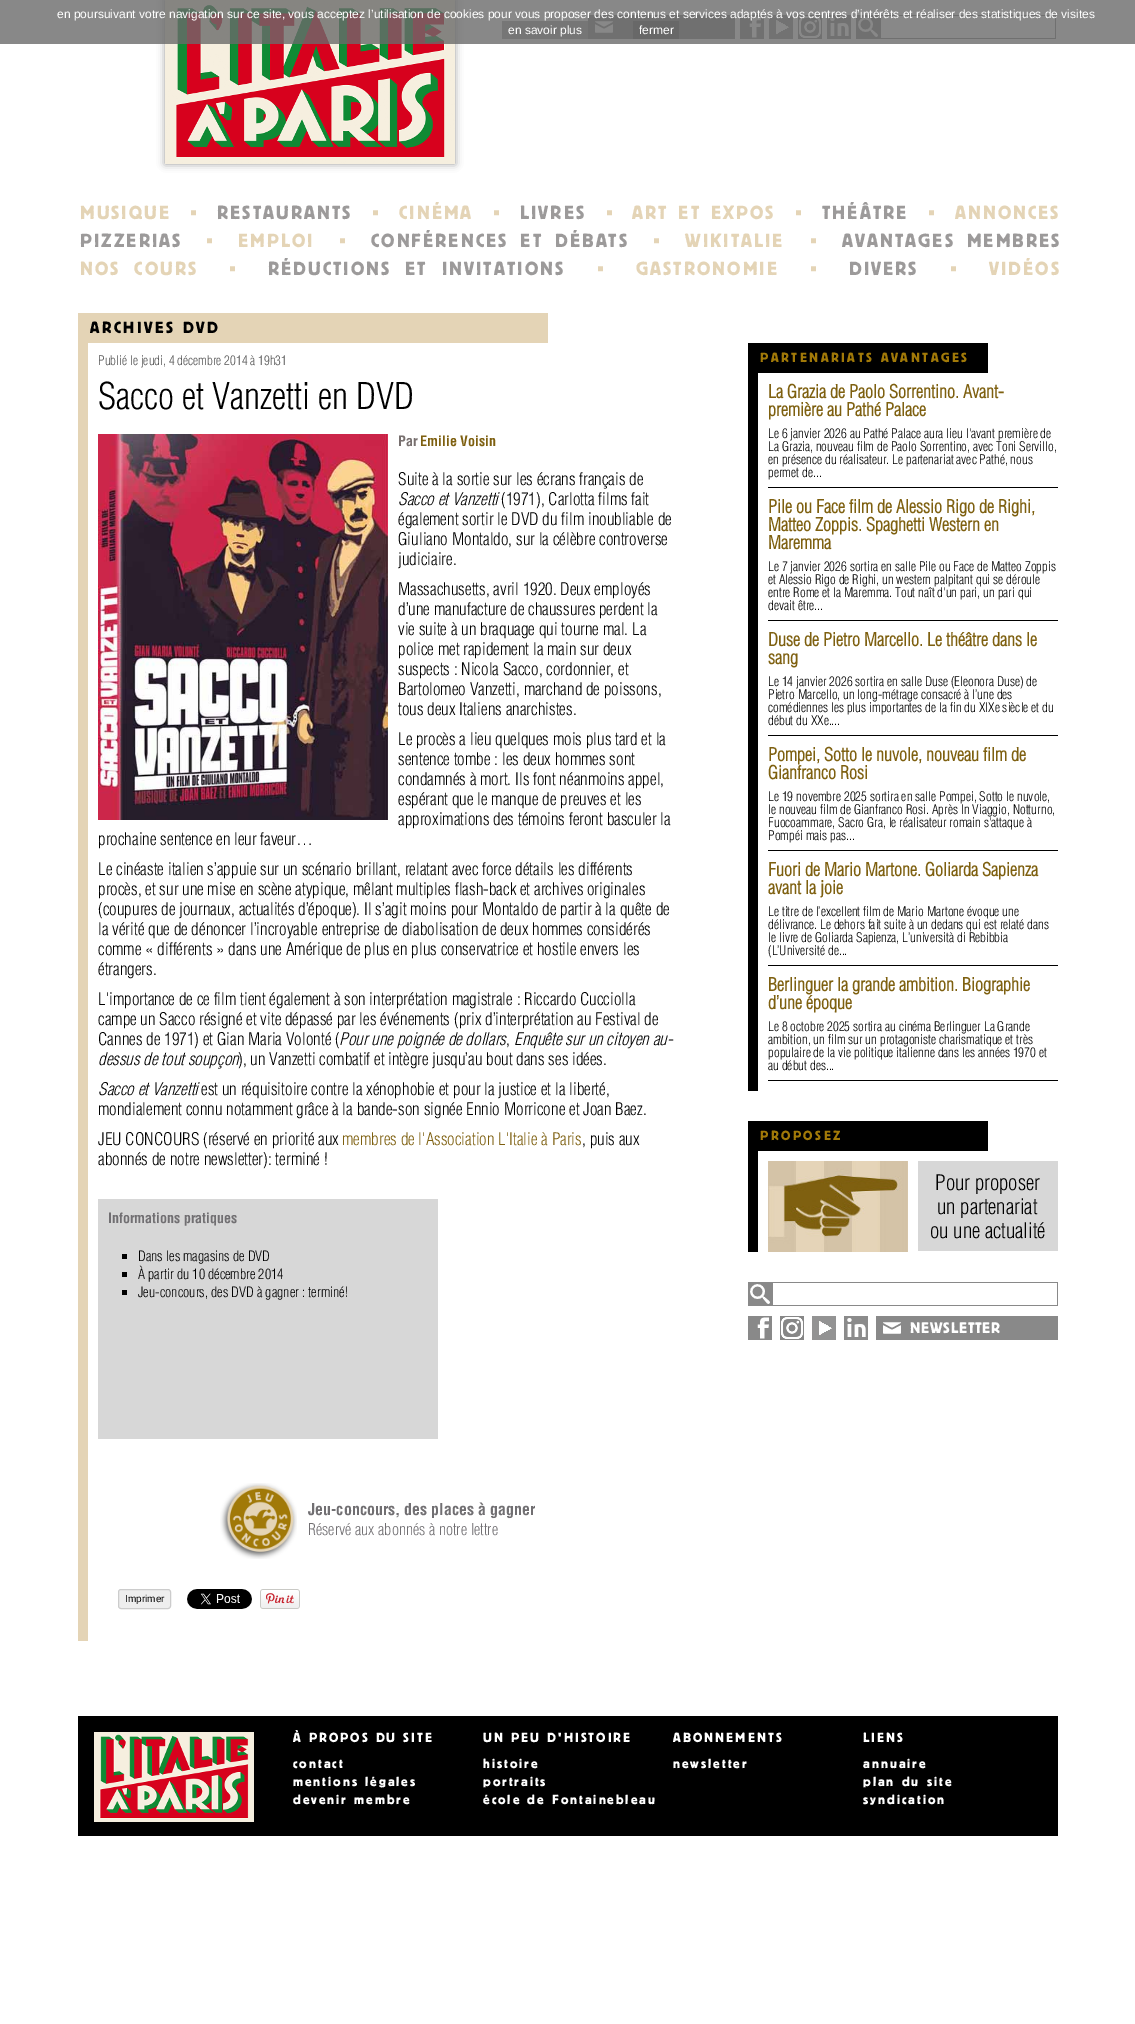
%!PS
<< /PageSize [1135 2024] /PageUsesTransparency true >> setpagedevice
/mt/moveto load def
/fl/fill load def
/st/stroke load def
/gs/gsave load def
/gr/grestore load def
/co { dup -16 bitshift 255 div exch dup -8 bitshift 255 and 255 div exch 255 and 255 div setrgbcolor } def
/fn { [ exch dup neg 0 0 3 -1 roll 0 0 ] selectfont } def
/tx { co fn moveto show } def
/bx { co rectfill } def
/al { dup .setfillconstantalpha .setstrokeconstantalpha } def
/rr { 5 dict begin { /r /h /w /y /x } { exch def } forall
  x r add y moveto x w add y 2 copy h add r arct x w add y h add x 1 index r arct
  x y h add x y r arct x y 2 copy exch w add exch r arct closepath end } def
/sh { 12 dict begin { /a /b /q /h /w /y /x } { exch def } forall gsave /was 0 def
  9 -2 -9 { dup b mul 4 div /e exch def 1 sub .425 mul 2.718 exch exp 1 add a .99 .min exch div /now exch def
    1 1 now sub 1 was sub div sub al /was now def
    w h .min e 2 mul add 0 gt { x e sub y e sub w e 2 mul add h e 2 mul add
      q e add b .6 mul add w h .min 2 div e add .min 0 .max rr fill } if } for grestore end } def
/im { 5 dict begin { /h /w /y /x /name } { exch def } forall
  gsave x y translate w h scale
  w h 8 [w 0 0 h 0 0] name (r) file false 3 colorimage grestore end } def
0 .pushpdf14devicefilter
0 2024 translate 1 -1 scale
4 setmiterlimit
0 0 1135 2024 16#FFFFFF bx
16#999999 co
165 0 290 164 0 4 1 sh
(media/1.raw) 165 0 290 164 im
588 15 147 24 16#898989 bx
(media/2.raw) 595 21 18 12 im
(media/3.raw) 740 15 24 24 im
(media/4.raw) 769 15 24 24 im
(media/5.raw) 798 15 24 24 im
(media/6.raw) 827 15 24 24 im
856 15 200 24 16#898989 bx
(media/7.raw) 858 17 20 20 im
881 16 174 22 16#FFFFFF bx
0.8 al
0 0 1135 44 16#6A6A6A bx
1 al
502 21 86 18 16#767676 bx
0.4 al
633 21 46 18 16#5C5C5C bx
1 al
78 313 470 30 16#E4D4B6 bx
78 343 10 1298 16#E4D4B6 bx
(media/8.raw) 98 434 290 386 im
98 1199 340 240 16#D7D7D7 bx
122 1254 5 5 16#000000 bx
122 1272 5 5 16#000000 bx
122 1290 5 5 16#000000 bx
(media/9.raw) 220 1483 77 76 im
16#EEEEEE co
118.5 1589.5 52 19 2.5 rr gs fl gr
16#CCCCCC co
st
(media/10.raw) 187 1589 65 20 im
(media/11.raw) 260 1589 40 20 im
748 343 240 30 16#000000 bx
748 373 10 718 16#000000 bx
768 487 290 1 16#000000 bx
768 620 290 1 16#000000 bx
768 735 290 1 16#000000 bx
768 850 290 1 16#000000 bx
768 965 290 1 16#000000 bx
768 1080 290 1 16#000000 bx
748 1121 240 30 16#000000 bx
748 1151 10 101 16#000000 bx
(media/12.raw) 768 1161 140 91 im
918 1161 140 90 16#D7D7D7 bx
748 1282 310 24 16#898989 bx
(media/7.raw) 750 1284 20 20 im
773 1283 284 22 16#FFFFFF bx
(media/3.raw) 748 1316 24 24 im
(media/5.raw) 780 1316 24 24 im
(media/4.raw) 812 1316 24 24 im
(media/6.raw) 844 1316 24 24 im
876 1316 182 24 16#898989 bx
(media/2.raw) 883 1322 18 12 im
78 1716 980 120 16#000000 bx
(media/13.raw) 94 1732 160 90 im
(en poursuivant votre navigation sur ce site, vous acceptez l’utilisation de cookies pour vous proposer des contenus et services adaptés à vos centres d’intérêts et réaliser des statistiques de visites) 57 18 /LiberationSans-Regular 12 16#FFFFFF tx
(en savoir plus) 508 34 /LiberationSans-Regular 12 16#FFFFFF tx
(fermer) 639 34 /LiberationSans-Regular 12 16#FFFFFF tx
/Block-Regular 20 fn
16#E4D4B6 co
80 219 mt 2 0 (MUSIQUE) ashow
(▪) 190 219 /LiberationSerif-Regular 20 16#E4D4B6 tx
/Block-Regular 20 fn
16#9C9A9A co
217 219 mt 2 0 (RESTAURANTS) ashow
(▪) 372 219 /LiberationSerif-Regular 20 16#E4D4B6 tx
/Block-Regular 20 fn
399 219 mt 2 0 (CINÉMA) ashow
(▪) 493 219 /LiberationSerif-Regular 20 16#E4D4B6 tx
/Block-Regular 20 fn
16#9C9A9A co
520 219 mt 2 0 (LIVRES) ashow
(▪) 606 219 /LiberationSerif-Regular 20 16#E4D4B6 tx
/Block-Regular 20 fn
632 219 mt 2 0 32 2 0 (ART ET EXPOS) awidthshow
(▪) 795 219 /LiberationSerif-Regular 20 16#E4D4B6 tx
/Block-Regular 20 fn
16#9C9A9A co
822 219 mt 2 0 (THÉÂTRE) ashow
(▪) 928 219 /LiberationSerif-Regular 20 16#E4D4B6 tx
/Block-Regular 20 fn
955 219 mt 2 0 (ANNONCES) ashow
16#9C9A9A co
80 247 mt 2 0 (PIZZERIAS) ashow
(▪) 206 247 /LiberationSerif-Regular 20 16#E4D4B6 tx
/Block-Regular 20 fn
238 247 mt 2 0 (EMPLOI) ashow
(▪) 339 247 /LiberationSerif-Regular 20 16#E4D4B6 tx
/Block-Regular 20 fn
16#9C9A9A co
371 247 mt 4 0 32 2 0 (CONFÉRENCES ET DÉBATS) awidthshow
(▪) 653 247 /LiberationSerif-Regular 20 16#E4D4B6 tx
/Block-Regular 20 fn
685 247 mt 2 0 (WIKITALIE) ashow
(▪) 810 247 /LiberationSerif-Regular 20 16#E4D4B6 tx
/Block-Regular 20 fn
16#9C9A9A co
842 247 mt 4 0 32 2 0 (AVANTAGES MEMBRES) awidthshow
16#E4D4B6 co
80 275 mt 6 0 32 2 0 (NOS COURS) awidthshow
(▪) 229 275 /LiberationSerif-Regular 20 16#E4D4B6 tx
/Block-Regular 20 fn
16#9C9A9A co
268 275 mt 6 0 32 2 0 (RÉDUCTIONS ET INVITATIONS) awidthshow
(▪) 597 275 /LiberationSerif-Regular 20 16#E4D4B6 tx
/Block-Regular 20 fn
636 275 mt 2 0 (GASTRONOMIE) ashow
(▪) 810 275 /LiberationSerif-Regular 20 16#E4D4B6 tx
/Block-Regular 20 fn
16#9C9A9A co
849 275 mt 2 0 (DIVERS) ashow
(▪) 950 275 /LiberationSerif-Regular 20 16#E4D4B6 tx
/Block-Regular 20 fn
989 275 mt 2 0 (VIDÉOS) ashow
/Block-Regular 17 fn
16#000000 co
90 333 mt 2.5 0 (ARCHIVES DVD) ashow
(Publié le jeudi, 4 décembre 2014 à 19h31) 98 365 /Helvetica-Light 13 16#555555 tx
(Sacco et Vanzetti en DVD) 98 409 /Helvetica-Light 36 16#000000 tx
(Par) 398 446 /Helvetica-Bold 14 16#776F6E tx
(Emilie Voisin) 420 446 /Helvetica-Bold 14 16#7E6010 tx
(Suite à la sortie sur les écrans français de) 398 485 /Helvetica-Light 17 16#000000 tx
(Sacco et Vanzetti) 398 505 /Helvetica-LightItalic 17 16#000000 tx
(\(1971\), Carlotta films fait) 501 505 /Helvetica-Light 17 16#000000 tx
(également sortir le DVD du film inoubliable de) 398 525 /Helvetica-Light 17 16#000000 tx
(Giuliano Montaldo, sur la célèbre controverse) 398 545 /Helvetica-Light 17 16#000000 tx
(judiciaire.) 398 565 /Helvetica-Light 17 16#000000 tx
(Massachusetts, avril 1920. Deux employés) 398 595 /Helvetica-Light 17 16#000000 tx
(d’une manufacture de chaussures perdent la) 398 615 /Helvetica-Light 17 16#000000 tx
(vie suite à un braquage qui tourne mal. La) 398 635 /Helvetica-Light 17 16#000000 tx
(police met rapidement la main sur deux) 398 655 /Helvetica-Light 17 16#000000 tx
(suspects : Nicola Sacco, cordonnier, et) 398 675 /Helvetica-Light 17 16#000000 tx
(Bartolomeo Vanzetti, marchand de poissons,) 398 695 /Helvetica-Light 17 16#000000 tx
(tous deux Italiens anarchistes.) 398 715 /Helvetica-Light 17 16#000000 tx
(Le procès a lieu quelques mois plus tard et la) 398 745 /Helvetica-Light 17 16#000000 tx
(sentence tombe : les deux hommes sont) 398 765 /Helvetica-Light 17 16#000000 tx
(condamnés à mort. Ils font néanmoins appel,) 398 785 /Helvetica-Light 17 16#000000 tx
(espérant que le manque de preuves et les) 398 805 /Helvetica-Light 17 16#000000 tx
(approximations des témoins feront basculer la) 398 825 /Helvetica-Light 17 16#000000 tx
(prochaine sentence en leur faveur…) 98 845 /Helvetica-Light 17 16#000000 tx
(Le cinéaste italien s’appuie sur un scénario brillant, relatant avec force détails les différents) 98 875 /Helvetica-Light 17 16#000000 tx
(procès, et sur une mise en scène atypique, mêlant multiples flash-back et archives originales) 98 895 /Helvetica-Light 17 16#000000 tx
(\(coupures de journaux, actualités d’époque\). Il s’agit moins pour Montaldo de partir à la quête de) 98 915 /Helvetica-Light 17 16#000000 tx
(la vérité que de dénoncer l’incroyable entreprise de diabolisation de deux hommes considérés) 98 935 /Helvetica-Light 17 16#000000 tx
(comme « différents » dans une Amérique de plus en plus conservatrice et hostile envers les) 98 955 /Helvetica-Light 17 16#000000 tx
(étrangers.) 98 975 /Helvetica-Light 17 16#000000 tx
(L'importance de ce film tient également à son interprétation magistrale : Riccardo Cucciolla) 98 1005 /Helvetica-Light 17 16#000000 tx
(campe un Sacco résigné et vite dépassé par les événements \(prix d’interprétation au Festival de) 98 1025 /Helvetica-Light 17 16#000000 tx
(Cannes de 1971\) et Gian Maria Volonté \() 98 1045 /Helvetica-Light 17 16#000000 tx
(Pour une poignée de dollars) 339 1045 /Helvetica-LightItalic 17 16#000000 tx
(Enquête sur un citoyen au-) 514 1045 /Helvetica-LightItalic 17 16#000000 tx
(,) 506 1045 /Helvetica-Light 17 16#000000 tx
(dessus de tout soupçon) 98 1065 /Helvetica-LightItalic 17 16#000000 tx
(\), un Vanzetti combatif et intègre jusqu’au bout dans ses idées.) 238 1065 /Helvetica-Light 17 16#000000 tx
(Sacco et Vanzetti) 98 1095 /Helvetica-LightItalic 17 16#000000 tx
(est un réquisitoire contre la xénophobie et pour la justice et la liberté,) 201 1095 /Helvetica-Light 17 16#000000 tx
(mondialement connu notamment grâce à la bande-son signée Ennio Morricone et Joan Baez.) 98 1115 /Helvetica-Light 17 16#000000 tx
(JEU CONCOURS \(réservé en priorité aux) 98 1145 /Helvetica-Light 17 16#000000 tx
(membres de l'Association L'Italie à Paris) 342 1145 /Helvetica-Light 17 16#7E6010 tx
(, puis aux) 582 1145 /Helvetica-Light 17 16#000000 tx
(abonnés de notre newsletter\): terminé !) 98 1165 /Helvetica-Light 17 16#000000 tx
(Informations pratiques) 108 1223 /Helvetica-Bold 14 16#716F72 tx
(Dans les magasins de DVD) 138 1261 /Helvetica-Light 14 16#000000 tx
(À partir du 10 décembre 2014) 138 1279 /Helvetica-Light 14 16#000000 tx
(Jeu-concours, des DVD à gagner : terminé!) 138 1297 /Helvetica-Light 14 16#000000 tx
(Jeu-concours, des places à gagner) 308 1515 /Helvetica-Bold 16 16#716F72 tx
(Réservé aux abonnés à notre lettre) 308 1535 /Helvetica-Light 16 16#716F72 tx
(Imprimer) 125 1602 /LiberationSans-Regular 10 16#000000 tx
/Block-Regular 14 fn
16#A17908 co
760 362 mt 2.5 0 (PARTENARIATS AVANTAGES) ashow
(La Grazia de Paolo Sorrentino. Avant-) 768 398 /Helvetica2-Bold 18 16#7E6010 tx
(première au Pathé Palace) 768 416 /Helvetica2-Bold 18 16#7E6010 tx
(Le 6 janvier 2026 au Pathé Palace aura lieu l'avant première de) 768 438 /Helvetica-Light 13 16#000000 tx
(La Grazia, nouveau film de Paolo Sorrentino, avec Toni Servillo,) 768 451 /Helvetica-Light 13 16#000000 tx
(en présence du réalisateur. Le partenariat avec Pathé, nous) 768 464 /Helvetica-Light 13 16#000000 tx
(permet de...) 768 477 /Helvetica-Light 13 16#000000 tx
(Pile ou Face film de Alessio Rigo de Righi,) 768 513 /Helvetica2-Bold 18 16#7E6010 tx
(Matteo Zoppis. Spaghetti Western en) 768 531 /Helvetica2-Bold 18 16#7E6010 tx
(Maremma) 768 549 /Helvetica2-Bold 18 16#7E6010 tx
(Le 7 janvier 2026 sortira en salle Pile ou Face de Matteo Zoppis) 768 571 /Helvetica-Light 13 16#000000 tx
(et Alessio Rigo de Righi, un western palpitant qui se déroule) 768 584 /Helvetica-Light 13 16#000000 tx
(entre Rome et la Maremma. Tout naît d'un pari, un pari qui) 768 597 /Helvetica-Light 13 16#000000 tx
(devait être...) 768 610 /Helvetica-Light 13 16#000000 tx
(Duse de Pietro Marcello. Le théâtre dans le) 768 646 /Helvetica2-Bold 18 16#7E6010 tx
(sang) 768 664 /Helvetica2-Bold 18 16#7E6010 tx
(Le 14 janvier 2026 sortira en salle Duse \(Eleonora Duse\) de) 768 686 /Helvetica-Light 13 16#000000 tx
(Pietro Marcello, un long-métrage consacré à l’une des) 768 699 /Helvetica-Light 13 16#000000 tx
(comédiennes les plus importantes de la fin du XIXe siècle et du) 768 712 /Helvetica-Light 13 16#000000 tx
(début du XXe....) 768 725 /Helvetica-Light 13 16#000000 tx
(Pompei, Sotto le nuvole, nouveau film de) 768 761 /Helvetica2-Bold 18 16#7E6010 tx
(Gianfranco Rosi) 768 779 /Helvetica2-Bold 18 16#7E6010 tx
(Le 19 novembre 2025 sortira en salle Pompei, Sotto le nuvole,) 768 801 /Helvetica-Light 13 16#000000 tx
(le nouveau film de Gianfranco Rosi. Après In Viaggio, Notturno,) 768 814 /Helvetica-Light 13 16#000000 tx
(Fuocoammare, Sacro Gra, le réalisateur romain s'attaque à) 768 827 /Helvetica-Light 13 16#000000 tx
(Pompéi mais pas...) 768 840 /Helvetica-Light 13 16#000000 tx
(Fuori de Mario Martone. Goliarda Sapienza) 768 876 /Helvetica2-Bold 18 16#7E6010 tx
(avant la joie) 768 894 /Helvetica2-Bold 18 16#7E6010 tx
(Le titre de l’excellent film de Mario Martone évoque une) 768 916 /Helvetica-Light 13 16#000000 tx
(délivrance. Le dehors fait suite à un dedans qui est relaté dans) 768 929 /Helvetica-Light 13 16#000000 tx
(le livre de Goliarda Sapienza, L’università di Rebibbia) 768 942 /Helvetica-Light 13 16#000000 tx
(\(L’Université de...) 768 955 /Helvetica-Light 13 16#000000 tx
(Berlinguer la grande ambition. Biographie) 768 991 /Helvetica2-Bold 18 16#7E6010 tx
(d’une époque) 768 1009 /Helvetica2-Bold 18 16#7E6010 tx
(Le 8 octobre 2025 sortira au cinéma Berlinguer La Grande) 768 1031 /Helvetica-Light 13 16#000000 tx
(ambition, un film sur un protagoniste charismatique et très) 768 1044 /Helvetica-Light 13 16#000000 tx
(populaire de la vie politique italienne dans les années 1970 et) 768 1057 /Helvetica-Light 13 16#000000 tx
(au début des...) 768 1070 /Helvetica-Light 13 16#000000 tx
/Block-Regular 14 fn
16#A17908 co
760 1140 mt 2.5 0 (PROPOSEZ) ashow
(Pour proposer) 935 1190 /Helvetica-Light 21 16#000000 tx
(un partenariat) 937 1214 /Helvetica-Light 21 16#000000 tx
(ou une actualité) 930 1238 /Helvetica-Light 21 16#000000 tx
/Block-Regular 16 fn
16#FFFFFF co
910 1333 mt .75 0 (NEWSLETTER) ashow
/Block-Regular 14 fn
293 1742 mt 2 0 (À PROPOS DU SITE) ashow
293 1768 mt 2 0 (contact) ashow
293 1786 mt 2 0 (mentions légales) ashow
293 1804 mt 2 0 (devenir membre) ashow
483 1742 mt 2 0 (UN PEU D'HISTOIRE) ashow
483 1768 mt 2 0 (histoire) ashow
483 1786 mt 2 0 (portraits) ashow
483 1804 mt 2 0 (école de Fontainebleau) ashow
673 1742 mt 2 0 (ABONNEMENTS) ashow
673 1768 mt 2 0 (newsletter) ashow
863 1742 mt 2 0 (LIENS) ashow
863 1768 mt 2 0 (annuaire) ashow
863 1786 mt 2 0 (plan du site) ashow
863 1804 mt 2 0 (syndication) ashow
.poppdf14devicefilter showpage
